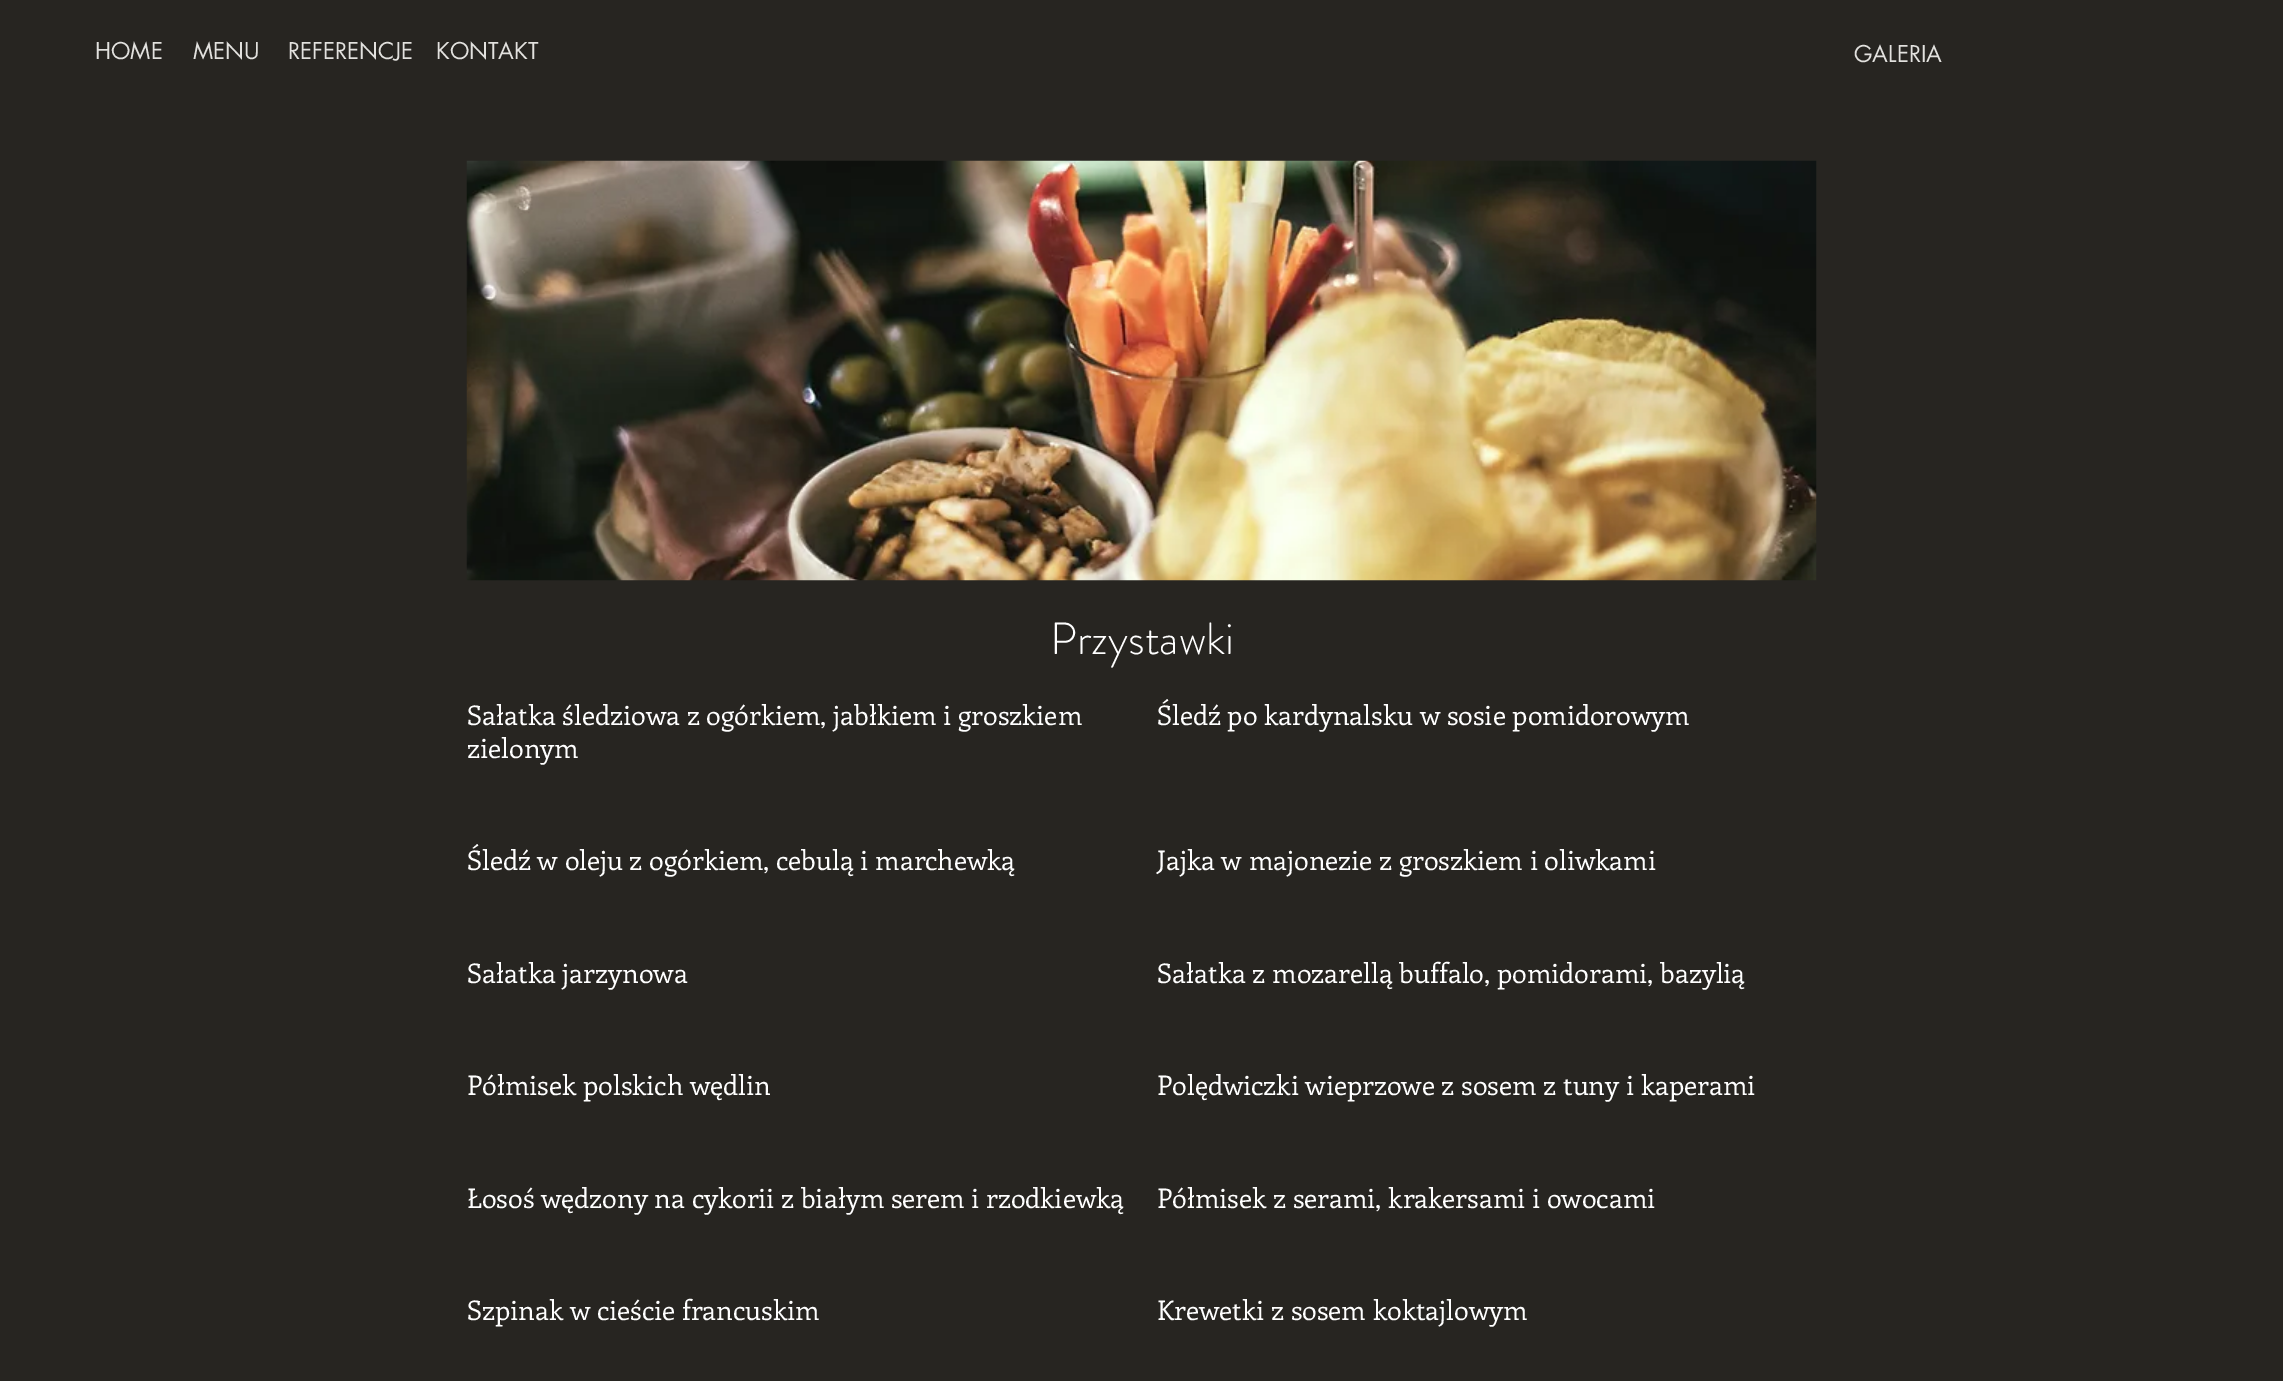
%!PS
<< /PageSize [2283 1381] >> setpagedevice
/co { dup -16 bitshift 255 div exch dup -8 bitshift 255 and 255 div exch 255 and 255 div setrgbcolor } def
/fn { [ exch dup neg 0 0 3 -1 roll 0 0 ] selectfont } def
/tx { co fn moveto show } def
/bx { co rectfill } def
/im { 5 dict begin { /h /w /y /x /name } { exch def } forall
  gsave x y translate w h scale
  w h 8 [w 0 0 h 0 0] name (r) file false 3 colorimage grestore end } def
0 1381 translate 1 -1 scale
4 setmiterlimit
0 0 2283 1381 16#272521 bx
(media/1.raw) 466 160 1351 421 im
(HOME) 95 59 /futura-Regular 22.5 16#E2E1DE tx
(MENU) 193 59 /futura-Regular 22.5 16#E2E1DE tx
(REFERENCJE) 288 59 /futura-Regular 22.5 16#E2E1DE tx
(KONTAKT) 436 59 /futura-Regular 22.5 16#E2E1DE tx
(GALERIA) 1854 62 /futura-Regular 22.5 16#E2E1DE tx
(Przystawki) 1050 654 /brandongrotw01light-Light 45 16#FFFFFF tx
(Sałatka śledziowa z ogórkiem, jabłkiem i groszkiem) 467 725 /Enriqueta-Regular 27 16#FFFFFF tx
(zielonym) 467 758 /Enriqueta-Regular 27 16#FFFFFF tx
(Śledź po kardynalsku w sosie pomidorowym) 1157 725 /Enriqueta-Regular 27 16#FFFFFF tx
(Śledź w oleju z ogórkiem, cebulą i marchewką) 467 870 /Enriqueta-Regular 27 16#FFFFFF tx
(Jajka w majonezie z groszkiem i oliwkami) 1157 870 /Enriqueta-Regular 27 16#FFFFFF tx
(Sałatka jarzynowa) 467 983 /Enriqueta-Regular 27 16#FFFFFF tx
(Sałatka z mozarellą buffalo, pomidorami, bazylią) 1157 983 /Enriqueta-Regular 27 16#FFFFFF tx
(Półmisek polskich wędlin) 467 1095 /Enriqueta-Regular 27 16#FFFFFF tx
(Polędwiczki wieprzowe z sosem z tuny i kaperami) 1157 1095 /Enriqueta-Regular 27 16#FFFFFF tx
(Łosoś wędzony na cykorii z białym serem i rzodkiewką) 467 1208 /Enriqueta-Regular 27 16#FFFFFF tx
(Półmisek z serami, krakersami i owocami) 1157 1208 /Enriqueta-Regular 27 16#FFFFFF tx
(Szpinak w cieście francuskim) 467 1320 /Enriqueta-Regular 27 16#FFFFFF tx
(Krewetki z sosem koktajlowym) 1157 1320 /Enriqueta-Regular 27 16#FFFFFF tx
showpage
